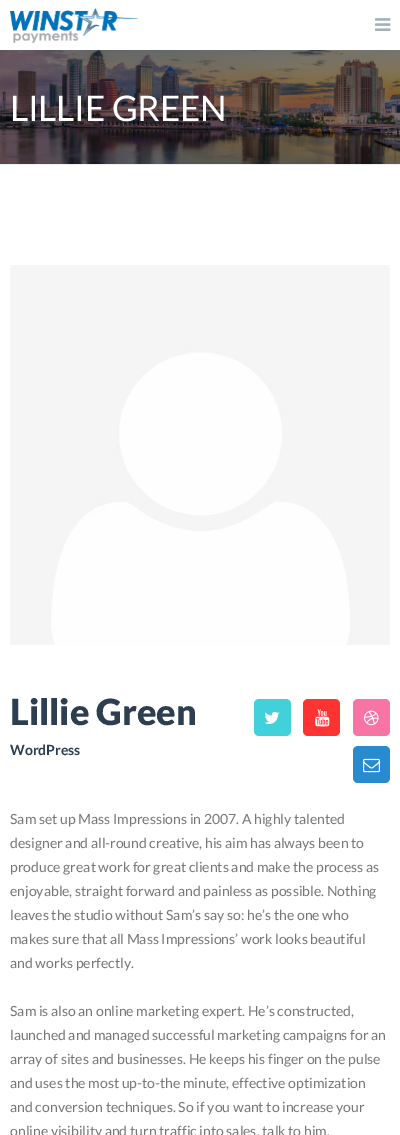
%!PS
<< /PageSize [400 1135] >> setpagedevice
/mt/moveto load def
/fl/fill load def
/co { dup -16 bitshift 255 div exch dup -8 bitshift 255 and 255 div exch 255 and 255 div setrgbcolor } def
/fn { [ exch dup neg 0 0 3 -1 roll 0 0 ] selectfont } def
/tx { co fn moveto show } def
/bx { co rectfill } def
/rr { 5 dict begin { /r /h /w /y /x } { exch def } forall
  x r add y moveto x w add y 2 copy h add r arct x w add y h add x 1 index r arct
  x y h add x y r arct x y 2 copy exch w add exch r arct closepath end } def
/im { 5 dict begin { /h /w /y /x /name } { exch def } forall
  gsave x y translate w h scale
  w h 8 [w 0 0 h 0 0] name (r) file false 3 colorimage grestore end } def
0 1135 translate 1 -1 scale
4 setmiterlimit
0 0 400 1135 16#FFFFFF bx
(media/1.raw) 10 8 128 35 im
(media/2.raw) 375 18 16 13 im
(media/3.raw) 0 50 400 114 im
0 164 400 1 16#ECF0F1 bx
(media/4.raw) 10 265 380 380 im
16#41D1DA co
254 699 37 37 5 rr fl
(media/5.raw) 264 711 16 13 im
16#FE3432 co
303 699 37 37 5 rr fl
(media/6.raw) 315 709 15 18 im
16#F874A4 co
353 699 37 37 5 rr fl
(media/7.raw) 364 710 15 16 im
16#288BD0 co
353 746 37 37 5 rr fl
(media/8.raw) 363 758 17 15 im
/Lato-Regular 35.25 fn
16#FFFFFF co
10 121 mt -.25 0 (LILLIE GREEN) ashow
(Lillie Green) 10 725 /Lato-Black 36 16#2C3E50 tx
(WordPress) 10 755 /Lato-Bold 14 16#2C3E50 tx
(Sam set up Mass Impressions in 2007. A highly talented) 10 824 /Lato-Regular 14 16#777777 tx
(designer and all-round creative, his aim has always been to) 10 848 /Lato-Regular 14 16#777777 tx
(produce great work for great clients and make the process as) 10 872 /Lato-Regular 14 16#777777 tx
(enjoyable, straight forward and painless as possible. Nothing) 10 896 /Lato-Regular 14 16#777777 tx
(leaves the studio without Sam’s say so: he’s the one who) 10 920 /Lato-Regular 14 16#777777 tx
(makes sure that all Mass Impressions’ work looks beautiful) 10 944 /Lato-Regular 14 16#777777 tx
(and works perfectly.) 10 968 /Lato-Regular 14 16#777777 tx
(Sam is also an online marketing expert. He’s constructed,) 10 1016 /Lato-Regular 14 16#777777 tx
(launched and managed successful marketing campaigns for an) 10 1040 /Lato-Regular 14 16#777777 tx
(array of sites and businesses. He keeps his finger on the pulse) 10 1064 /Lato-Regular 14 16#777777 tx
(and uses the most up-to-the minute, effective optimization) 10 1088 /Lato-Regular 14 16#777777 tx
(and conversion techniques. So if you want to increase your) 10 1112 /Lato-Regular 14 16#777777 tx
(online visibility and turn traffic into sales, talk to him.) 10 1136 /Lato-Regular 14 16#777777 tx
showpage
